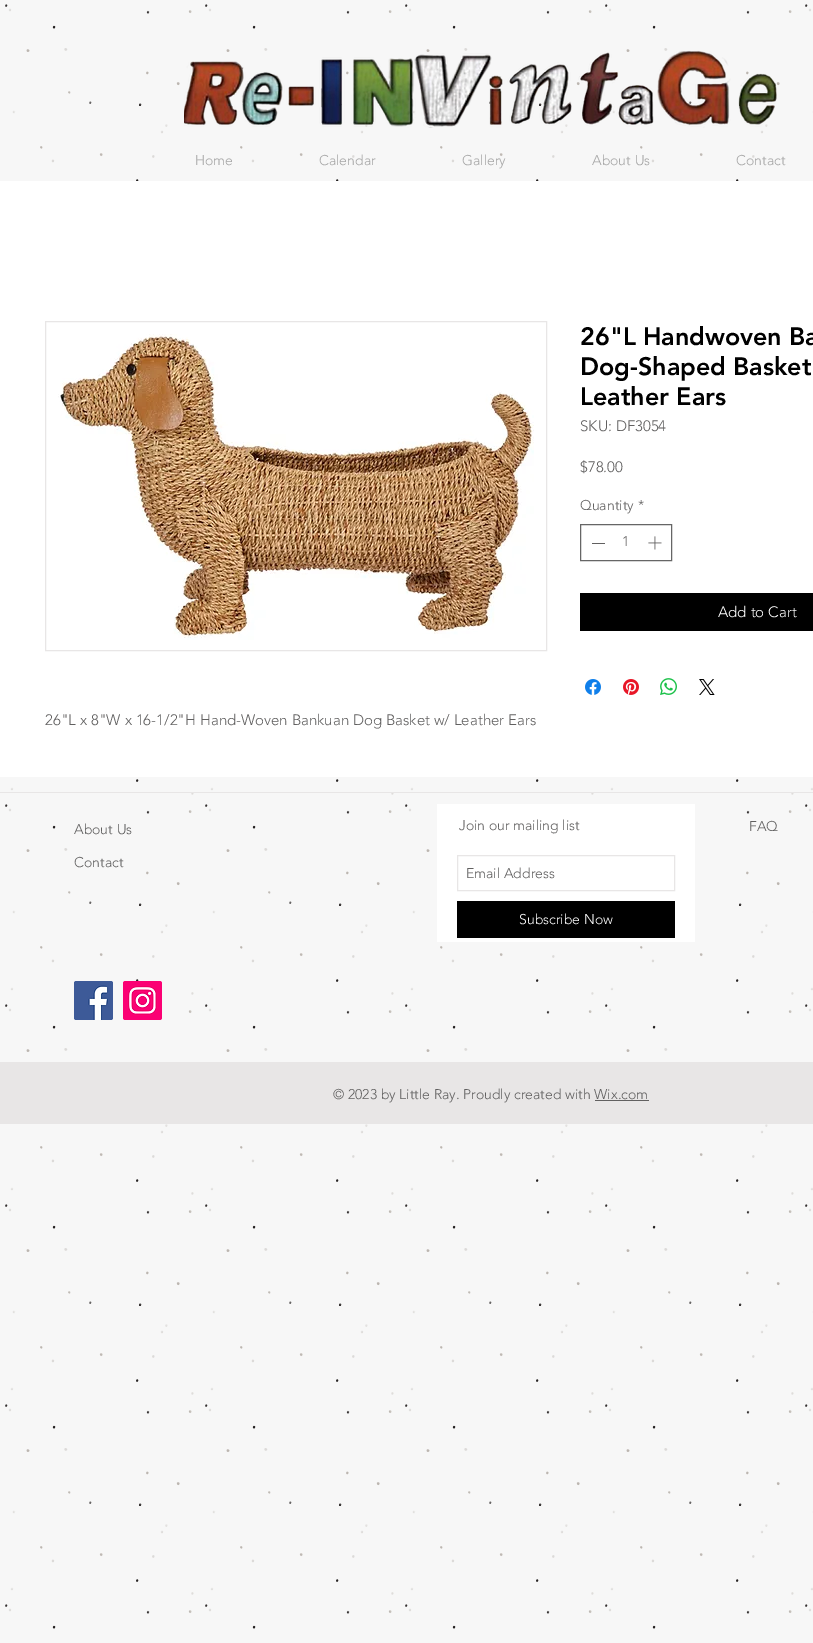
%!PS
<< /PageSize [813 1643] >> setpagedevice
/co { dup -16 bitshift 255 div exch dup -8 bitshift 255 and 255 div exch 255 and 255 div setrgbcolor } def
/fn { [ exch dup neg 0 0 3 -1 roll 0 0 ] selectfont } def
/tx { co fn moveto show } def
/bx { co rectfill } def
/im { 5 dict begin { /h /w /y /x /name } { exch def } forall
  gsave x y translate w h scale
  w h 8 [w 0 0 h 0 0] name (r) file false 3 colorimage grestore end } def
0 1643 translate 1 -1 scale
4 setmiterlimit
0 0 813 1643 16#F7F7F7 bx
(media/1.raw) 5 4 808 1625 im
(media/2.raw) 184 50 593 78 im
0 181 813 596 16#FFFFFF bx
16#666666 co
580.5 524.5 91 36 rectstroke
592 543 13 1 16#616060 bx
(media/3.raw) 648 536 14 14 im
580 593 233 38 16#000000 bx
(media/4.raw) 585 679 16 16 im
(media/5.raw) 623 679 16 16 im
(media/6.raw) 660 678 17 17 im
(media/7.raw) 699 679 16 16 im
16#E8E6E6 co
45.5 321.5 501 329 rectstroke
(media/8.raw) 58 334 476 306 im
0 792 813 1 16#E8E6E6 bx
437 804 258 138 16#FFFFFF bx
16#E8E6E6 co
457.5 855.5 217 35 rectstroke
457 901 218 37 16#000000 bx
(media/9.raw) 74 981 39 39 im
(media/10.raw) 123 981 39 39 im
0 1062 813 62 16#E8E6E6 bx
595 1100 54 1 16#616060 bx
(Home) 195 165 /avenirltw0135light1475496-Light 14 16#A6A6A6 tx
(Calendar) 319 165 /avenirltw0135light1475496-Light 14 16#A6A6A6 tx
(Gallery) 462 165 /avenirltw0135light1475496-Light 14 16#A6A6A6 tx
(About Us) 592 165 /avenirltw0135light1475496-Light 14 16#A6A6A6 tx
(Contact) 736 165 /avenirltw0135light1475496-Light 14 16#A6A6A6 tx
(26"L Handwoven Ba) 580 345 /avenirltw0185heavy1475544-Black 25 16#000000 tx
(Dog-Shaped Basket) 580 375 /avenirltw0185heavy1475544-Black 25 16#000000 tx
(Leather Ears) 580 405 /avenirltw0185heavy1475544-Black 25 16#000000 tx
(SKU: DF3054) 580 431 /avenirltw0135light1475496-Light 15 16#616060 tx
($78.00) 580 472 /avenirltw0135light1475496-Light 15 16#616060 tx
(Quantity) 580 510 /avenirltw0135light1475496-Light 14 16#616060 tx
(*) 638 510 /avenirltw0135light1475496-Light 14 16#616060 tx
(1) 622 546 /avenirltw0135light1475496-Light 14 16#616060 tx
(Add to Cart) 718 617 /avenirltw0135light1475496-Light 15 16#FFFFFF tx
(26"L x 8"W x 16-1/2"H Hand-Woven Bankuan Dog Basket w/ Leather Ears) 45 725 /avenirltw0135light1475496-Light 15 16#616060 tx
(About Us) 74 834 /avenirltw0135light1475496-Light 14 16#616060 tx
(Contact) 74 867 /avenirltw0135light1475496-Light 14 16#616060 tx
(Join our mailing list) 459 830 /avenirltw0135light1475496-Light 14 16#616060 tx
(Email Address) 466 878 /avenirltw0135light1475496-Light 14 16#616060 tx
(Subscribe Now) 519 924 /avenirltw0135light1475496-Light 14 16#FFFFFF tx
(FAQ) 749 831 /avenirltw0135light1475496-Light 14 16#616060 tx
(© 2023 by Little Ray. Proudly created with Wix.com) 333 1099 /avenirltw0135light1475496-Light 14 16#616060 tx
showpage
